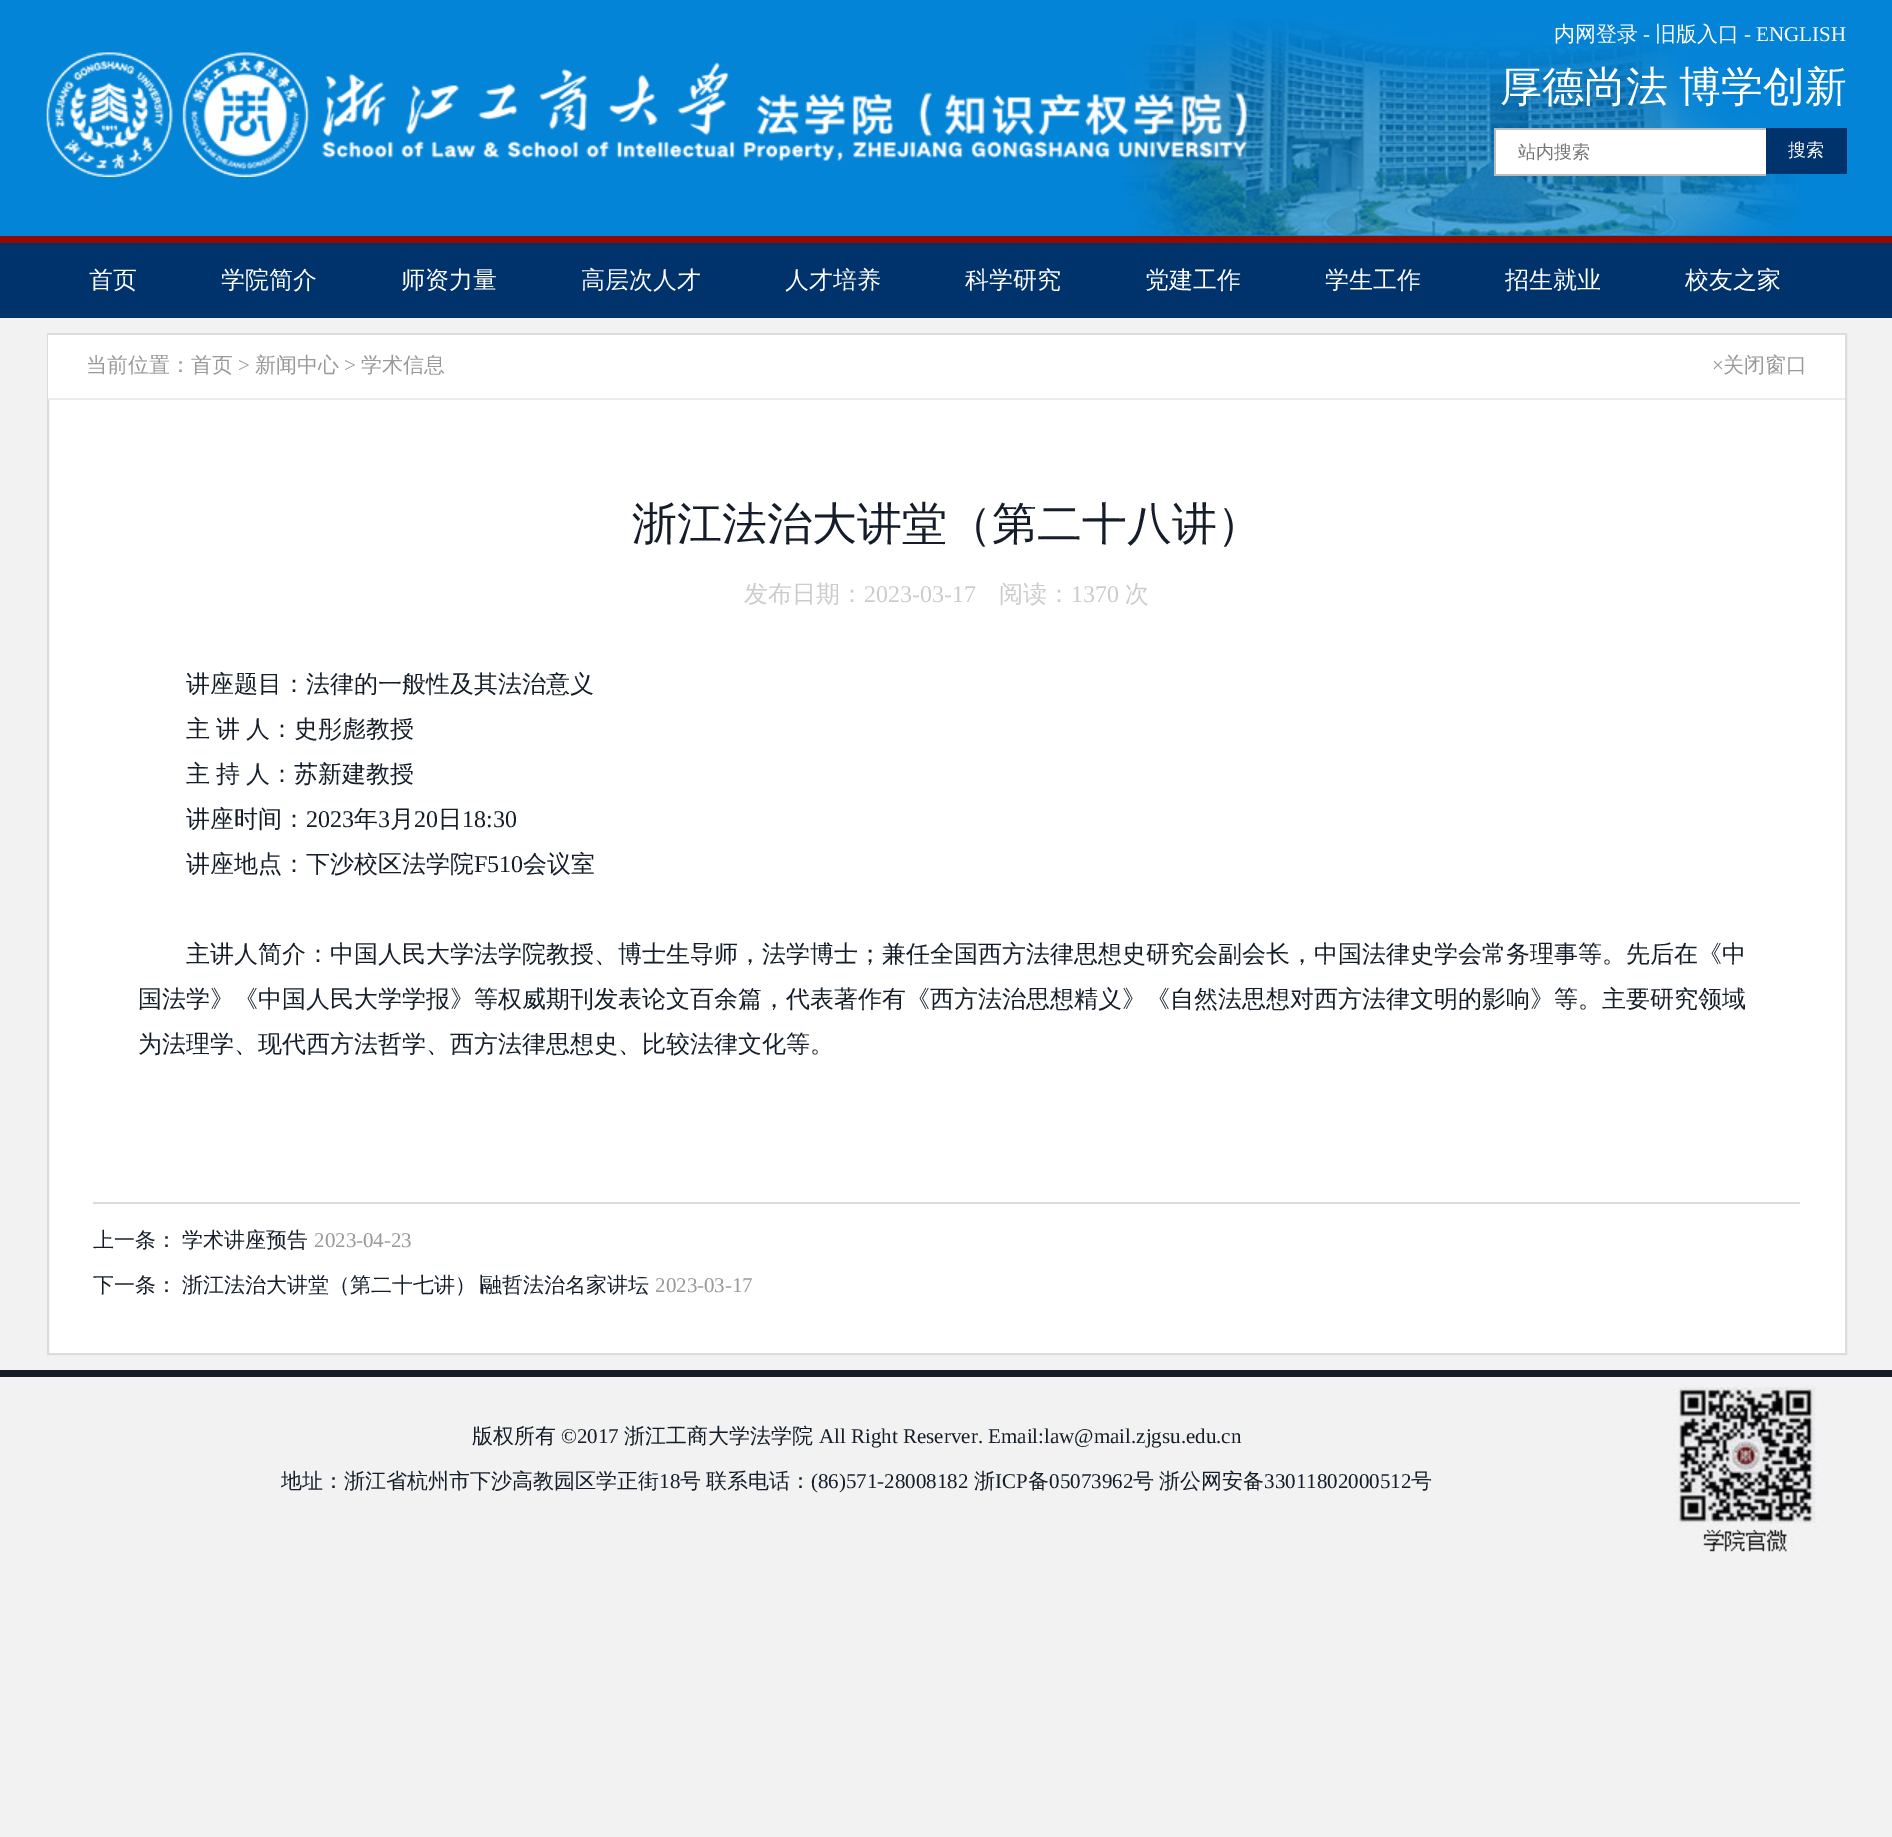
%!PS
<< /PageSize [1892 1837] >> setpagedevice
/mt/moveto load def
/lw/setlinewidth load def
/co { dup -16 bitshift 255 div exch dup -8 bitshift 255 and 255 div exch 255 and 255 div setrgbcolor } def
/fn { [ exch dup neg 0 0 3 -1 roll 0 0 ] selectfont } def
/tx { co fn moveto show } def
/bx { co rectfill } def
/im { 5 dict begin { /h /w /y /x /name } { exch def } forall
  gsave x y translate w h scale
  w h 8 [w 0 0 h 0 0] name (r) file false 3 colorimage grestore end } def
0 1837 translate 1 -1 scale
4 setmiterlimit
0 0 1892 1837 16#F2F2F2 bx
0 0 1892 236 16#0484D6 bx
(media/2.raw) 1123 19 675 217 im
(media/1.raw) 46 52 1201 125 im
1496 130 270 44 16#FFFFFF bx
1494 128 272 2 16#BCBCBC bx
1494 174 272 2 16#BCBCBC bx
1494 128 2 48 16#BCBCBC bx
1766 128 81 46 16#00336C bx
0 243 1892 75 16#00336C bx
0 236 1892 7 16#930900 bx
49 400 1796 953 16#FFFFFF bx
16#DCDCDC co
2 lw
48 334 1798 1020 rectstroke
48 335 1797 63 16#FFFFFF bx
48 398 1797 2 16#ECECEC bx
93 1202 1707 2 16#DCDCDC bx
0 1370 1892 7 16#141D29 bx
(media/3.raw) 1674 1385 143 168 im
(内网登录) 1554 41 /WenQuanYiZenHei-Medium 21 16#FFFFFF tx
(-) 1643 41 /LiberationSerif-Regular 21 16#FFFFFF tx
(旧版入口) 1655 41 /WenQuanYiZenHei-Medium 21 16#FFFFFF tx
(- ENGLISH) 1744 41 /LiberationSerif-Regular 21 16#FFFFFF tx
(厚德尚法) 1500 101 /WenQuanYiZenHei-Medium 42 16#FFFFFF tx
(博学创新) 1679 101 /WenQuanYiZenHei-Medium 42 16#FFFFFF tx
(站内搜索) 1518 158 /WenQuanYiZenHei-Medium 18 16#757575 tx
(搜索) 1788 156 /WenQuanYiZenHei-Medium 18 16#FFFFFF tx
(首页) 89 288 /WenQuanYiZenHei-Medium 24 16#FFFFFF tx
(学院简介) 221 288 /WenQuanYiZenHei-Medium 24 16#FFFFFF tx
(师资力量) 401 288 /WenQuanYiZenHei-Medium 24 16#FFFFFF tx
(高层次人才) 581 288 /WenQuanYiZenHei-Medium 24 16#FFFFFF tx
(人才培养) 785 288 /WenQuanYiZenHei-Medium 24 16#FFFFFF tx
(科学研究) 965 288 /WenQuanYiZenHei-Medium 24 16#FFFFFF tx
(党建工作) 1145 288 /WenQuanYiZenHei-Medium 24 16#FFFFFF tx
(学生工作) 1325 288 /WenQuanYiZenHei-Medium 24 16#FFFFFF tx
(招生就业) 1505 288 /WenQuanYiZenHei-Medium 24 16#FFFFFF tx
(校友之家) 1685 288 /WenQuanYiZenHei-Medium 24 16#FFFFFF tx
(当前位置：首页) 86 372 /WenQuanYiZenHei-Medium 21 16#999999 tx
(>) 238 372 /LiberationSerif-Regular 21 16#999999 tx
(新闻中心) 255 372 /WenQuanYiZenHei-Medium 21 16#999999 tx
(>) 344 372 /LiberationSerif-Regular 21 16#999999 tx
(学术信息) 361 372 /WenQuanYiZenHei-Medium 21 16#999999 tx
(×) 1712 372 /LiberationSerif-Regular 21 16#999999 tx
(关闭窗口) 1723 372 /WenQuanYiZenHei-Medium 21 16#999999 tx
(浙江法治大讲堂（第二十八讲）) 632 539 /WenQuanYiZenHei-Medium 45 16#141D29 tx
(发布日期：) 744 602 /WenQuanYiZenHei-Medium 24 16#CCCCCC tx
(2023-03-17) 864 602 /LiberationSerif-Regular 24 16#CCCCCC tx
(阅读：) 999 602 /WenQuanYiZenHei-Medium 24 16#CCCCCC tx
(1370) 1071 602 /LiberationSerif-Regular 24 16#CCCCCC tx
(次) 1125 602 /WenQuanYiZenHei-Medium 24 16#CCCCCC tx
(讲座题目：法律的一般性及其法治意义) 186 692 /WenQuanYiZenHei-Medium 24 16#141D29 tx
186 737 mt -1 0 32 (主 讲 人：史彤彪教授) widthshow
186 782 mt -1 0 32 (主 持 人：苏新建教授) widthshow
(讲座时间：) 186 827 /WenQuanYiZenHei-Medium 24 16#141D29 tx
(2023) 306 827 /LiberationSerif-Regular 24 16#141D29 tx
(年) 354 827 /WenQuanYiZenHei-Medium 24 16#141D29 tx
(3) 378 827 /LiberationSerif-Regular 24 16#141D29 tx
(月) 390 827 /WenQuanYiZenHei-Medium 24 16#141D29 tx
(20) 414 827 /LiberationSerif-Regular 24 16#141D29 tx
(日) 438 827 /WenQuanYiZenHei-Medium 24 16#141D29 tx
(18:30) 462 827 /LiberationSerif-Regular 24 16#141D29 tx
(讲座地点：下沙校区法学院) 186 872 /WenQuanYiZenHei-Medium 24 16#141D29 tx
(F510) 474 872 /LiberationSerif-Regular 24 16#141D29 tx
(会议室) 523 872 /WenQuanYiZenHei-Medium 24 16#141D29 tx
(主讲人简介：中国人民大学法学院教授、博士生导师，法学博士；兼任全国西方法律思想史研究会副会长，中国法律史学会常务理事等。先后在《中) 186 962 /WenQuanYiZenHei-Medium 24 16#141D29 tx
(国法学》《中国人民大学学报》等权威期刊发表论文百余篇，代表著作有《西方法治思想精义》《自然法思想对西方法律文明的影响》等。主要研究领域) 138 1007 /WenQuanYiZenHei-Medium 24 16#141D29 tx
(为法理学、现代西方法哲学、西方法律思想史、比较法律文化等。) 138 1052 /WenQuanYiZenHei-Medium 24 16#141D29 tx
(上一条：) 93 1247 /WenQuanYiZenHei-Medium 21 16#141D29 tx
(学术讲座预告) 182 1247 /WenQuanYiZenHei-Medium 21 16#141D29 tx
(2023-04-23) 314 1247 /LiberationSerif-Regular 21 16#999999 tx
(下一条：) 93 1292 /WenQuanYiZenHei-Medium 21 16#141D29 tx
(浙江法治大讲堂（第二十七讲）∣融哲法治名家讲坛) 182 1292 /WenQuanYiZenHei-Medium 21 16#141D29 tx
(2023-03-17) 655 1292 /LiberationSerif-Regular 21 16#999999 tx
(版权所有) 472 1443 /WenQuanYiZenHei-Medium 21 16#141D29 tx
(©2017) 561 1443 /LiberationSerif-Regular 21 16#141D29 tx
(浙江工商大学法学院) 624 1443 /WenQuanYiZenHei-Medium 21 16#141D29 tx
(All Right Reserver. Email:law@mail.zjgsu.edu.cn) 819 1443 /LiberationSerif-Regular 21 16#141D29 tx
(地址：浙江省杭州市下沙高教园区学正街) 281 1488 /WenQuanYiZenHei-Medium 21 16#141D29 tx
(18) 659 1488 /LiberationSerif-Regular 21 16#141D29 tx
(号) 680 1488 /WenQuanYiZenHei-Medium 21 16#141D29 tx
(联系电话：) 706 1488 /WenQuanYiZenHei-Medium 21 16#141D29 tx
(\(86\)571-28008182) 811 1488 /LiberationSerif-Regular 21 16#141D29 tx
(浙) 974 1488 /WenQuanYiZenHei-Medium 21 16#141D29 tx
(ICP) 995 1488 /LiberationSerif-Regular 21 16#141D29 tx
(备) 1028 1488 /WenQuanYiZenHei-Medium 21 16#141D29 tx
(05073962) 1049 1488 /LiberationSerif-Regular 21 16#141D29 tx
(号) 1133 1488 /WenQuanYiZenHei-Medium 21 16#141D29 tx
(浙公网安备) 1159 1488 /WenQuanYiZenHei-Medium 21 16#141D29 tx
(33011802000512) 1264 1488 /LiberationSerif-Regular 21 16#141D29 tx
(号) 1411 1488 /WenQuanYiZenHei-Medium 21 16#141D29 tx
showpage
